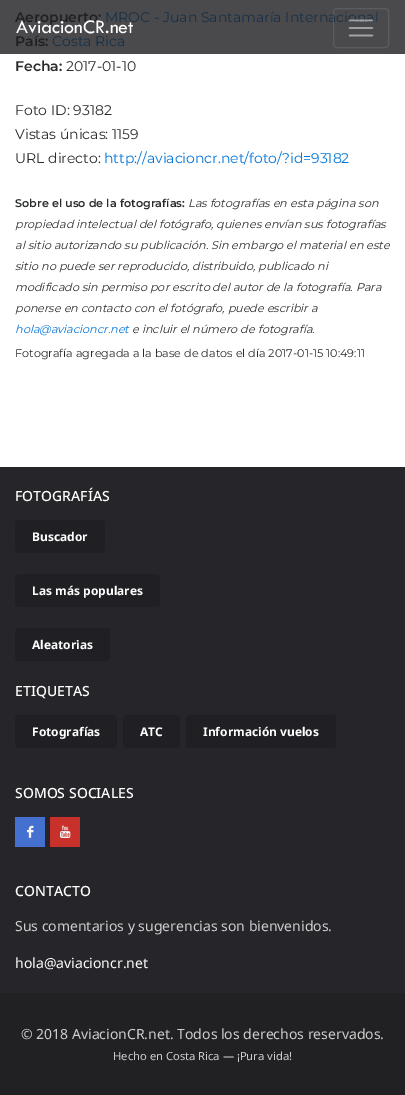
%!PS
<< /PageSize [405 1095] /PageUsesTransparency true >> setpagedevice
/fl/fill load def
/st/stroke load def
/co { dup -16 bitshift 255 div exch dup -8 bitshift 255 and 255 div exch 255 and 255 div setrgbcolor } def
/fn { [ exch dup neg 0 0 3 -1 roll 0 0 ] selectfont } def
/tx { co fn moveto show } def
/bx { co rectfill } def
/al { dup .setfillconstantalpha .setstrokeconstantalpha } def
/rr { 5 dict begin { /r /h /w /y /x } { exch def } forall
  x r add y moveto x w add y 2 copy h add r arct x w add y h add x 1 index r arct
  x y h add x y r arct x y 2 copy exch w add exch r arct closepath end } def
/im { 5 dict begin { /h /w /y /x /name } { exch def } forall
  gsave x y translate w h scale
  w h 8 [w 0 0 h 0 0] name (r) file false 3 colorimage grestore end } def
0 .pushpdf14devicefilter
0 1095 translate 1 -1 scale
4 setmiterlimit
0 0 405 1095 16#FFFFFF bx
0 0 405 54 16#4A4A4D bx
0 467 405 526 16#26262A bx
16#202024 co
15 520 90 33 4 rr fl
15 574 145 33 4 rr fl
15 628 95 33 4 rr fl
15 715 102 33 4 rr fl
123 715 57 33 4 rr fl
186 715 150 33 4 rr fl
15 817 30 30 16#4470CF bx
(media/2.raw) 27 825 7 13 im
50 817 30 30 16#C8312B bx
(media/3.raw) 60 825 11 13 im
0 993 405 102 16#212124 bx
(Aeropuerto:) 15 22 /Montserrat-SemiBold 14 16#1F2023 tx
(MROC - Juan Santamaría Internacional) 105 22 /Montserrat-Regular 14 16#182F46 tx
(País:) 15 46 /Montserrat-SemiBold 14 16#1F2023 tx
(Costa Rica) 52 46 /Montserrat-Regular 14 16#182F46 tx
(Fecha:) 15 71 /Montserrat-SemiBold 14 16#292B2C tx
(2017-01-10) 66 71 /Montserrat-Regular 14 16#292B2C tx
(Foto ID: 93182) 15 115 /Montserrat-Regular 14 16#292B2C tx
(Vistas únicas: 1159) 15 139 /Montserrat-Regular 14 16#292B2C tx
(URL directo:) 15 163 /Montserrat-Regular 14 16#292B2C tx
(http://aviacioncr.net/foto/?id=93182) 104 163 /Montserrat-Regular 14 16#0275D8 tx
(Sobre el uso de la fotografías:) 15 207 /Montserrat-SemiBold 11.2 16#292B2C tx
(Las fotografías en esta página son) 188 207 /Montserrat-Italic 11.2 16#292B2C tx
(propiedad intelectual del fotógrafo, quienes envían sus fotografías) 15 228 /Montserrat-Italic 11.2 16#292B2C tx
(al sitio autorizando su publicación. Sin embargo el material en este) 15 249 /Montserrat-Italic 11.2 16#292B2C tx
(sitio no puede ser reproducido, distribuido, publicado ni) 15 270 /Montserrat-Italic 11.2 16#292B2C tx
(modificado sin permiso por escrito del autor de la fotografía. Para) 15 291 /Montserrat-Italic 11.2 16#292B2C tx
(ponerse en contacto con el fotógrafo, puede escribir a) 15 312 /Montserrat-Italic 11.2 16#292B2C tx
(hola@aviacioncr.net) 15 333 /Montserrat-Italic 11.2 16#0275D8 tx
(e incluir el número de fotografía.) 132 333 /Montserrat-Italic 11.2 16#292B2C tx
(Fotografía agregada a la base de datos el día 2017-01-15 10:49:11) 15 357 /Montserrat-Regular 11.2 16#292B2C tx
(AviacionCR.net) 16 33 /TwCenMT-Regular 20 16#FFFFFF tx
0.1 al
333.5 8.5 55 39 3.5 rr st
1 al
(media/1.raw) 348 19 26 18 im
(FOTOGRAFÍAS) 15 501 /NotoSans-Medium 14 16#FFFFFF tx
(Buscador) 32 541 /NotoSans-Bold 12 16#FFFFFF tx
(Las más populares) 32 595 /NotoSans-Bold 12 16#FFFFFF tx
(Aleatorias) 32 649 /NotoSans-Bold 12 16#FFFFFF tx
(ETIQUETAS) 15 696 /NotoSans-Medium 14 16#FFFFFF tx
(Fotografías) 32 736 /NotoSans-Bold 12 16#FFFFFF tx
(ATC) 140 736 /NotoSans-Bold 12 16#FFFFFF tx
(Información vuelos) 203 736 /NotoSans-Bold 12 16#FFFFFF tx
(SOMOS SOCIALES) 15 798 /NotoSans-Medium 14 16#FFFFFF tx
(CONTACTO) 15 896 /NotoSans-Medium 14 16#FFFFFF tx
(Sus comentarios y sugerencias son bienvenidos.) 15 931 /NotoSans-Regular 14 16#CDCDCD tx
(hola@aviacioncr.net) 15 968 /NotoSans-Regular 14 16#FFFFFF tx
(© 2018 AviacionCR.net. Todos los derechos reservados.) 21 1039 /NotoSans-Regular 14 16#CDCDCD tx
(Hecho en Costa Rica — ¡Pura vida!) 113 1060 /NotoSans-Regular 11.2 16#CDCDCD tx
.poppdf14devicefilter showpage
